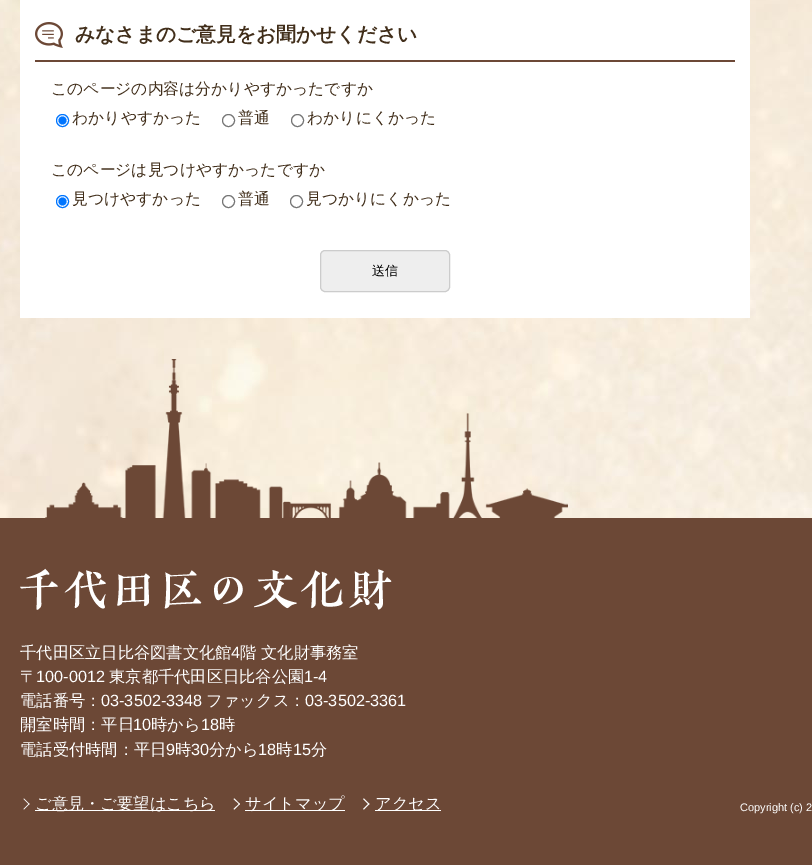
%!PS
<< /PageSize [812 865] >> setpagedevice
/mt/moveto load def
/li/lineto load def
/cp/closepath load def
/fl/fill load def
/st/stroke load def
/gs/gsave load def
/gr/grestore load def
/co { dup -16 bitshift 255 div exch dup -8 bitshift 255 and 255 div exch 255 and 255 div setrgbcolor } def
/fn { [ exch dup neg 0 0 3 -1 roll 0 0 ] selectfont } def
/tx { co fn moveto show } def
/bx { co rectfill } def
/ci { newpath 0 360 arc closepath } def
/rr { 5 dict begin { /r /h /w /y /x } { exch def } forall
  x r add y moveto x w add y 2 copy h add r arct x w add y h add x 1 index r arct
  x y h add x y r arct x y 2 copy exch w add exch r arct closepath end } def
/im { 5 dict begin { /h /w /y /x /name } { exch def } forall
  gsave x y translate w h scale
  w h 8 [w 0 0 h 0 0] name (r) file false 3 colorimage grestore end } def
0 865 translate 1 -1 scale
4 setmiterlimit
0 0 812 865 16#FFFFFF bx
(media/1.raw) 0 0 812 518 im
20 0 730 318 16#FFFFFF bx
(media/2.raw) 35 22 28 26 im
35 60 700 2 16#6C4836 bx
16#0075FF co
62.5 120.5 6 ci st
62.5 120.5 4 ci fl
16#767676 co
228.5 120.5 6 ci st
297.5 120.5 6 ci st
16#0075FF co
62.5 201.5 6 ci st
62.5 201.5 4 ci fl
16#767676 co
228.5 201.5 6 ci st
296.5 201.5 6 ci st
16#EEEEEE co
320.5 250.5 129 41 4.5 rr gs fl gr
16#CCCCCC co
st
0 518 812 347 16#6C4836 bx
(media/3.raw) 45 359 523 159 im
(media/4.raw) 20 568 372 42 im
16#FFFFFF co
24 798.5 mt 29.5 804 li 29 804.5 li 23.5 799 li cp fl
29 803.5 mt 29.5 804 li 24 809.5 li 23.5 809 li cp fl
35 810 180 1 16#FFFFFF bx
234.5 798.5 mt 240 804 li 239.5 804.5 li 233.5 799 li cp fl
239.5 803.5 mt 240 804 li 234.5 809.5 li 233.5 809 li cp fl
245 810 100 1 16#FFFFFF bx
364 798.5 mt 369.5 804 li 368.5 804.5 li 363 799 li cp fl
368.5 803.5 mt 369.5 804 li 364 809.5 li 363 809 li cp fl
375 810 66 1 16#FFFFFF bx
(みなさまのご意見をお聞かせください) 75 41 /WenQuanYiZenHei-Bold 19.75 16#412E1A tx
(このページの内容は分かりやすかったですか) 51 94 /WenQuanYiZenHei-Medium 15.8 16#412E1A tx
(わかりやすかった) 72 123 /WenQuanYiZenHei-Medium 15.8 16#412E1A tx
(普通) 238 123 /WenQuanYiZenHei-Medium 15.8 16#412E1A tx
(わかりにくかった) 307 123 /WenQuanYiZenHei-Medium 15.8 16#412E1A tx
(このページは見つけやすかったですか) 51 175 /WenQuanYiZenHei-Medium 15.8 16#412E1A tx
(見つけやすかった) 72 204 /WenQuanYiZenHei-Medium 15.8 16#412E1A tx
(普通) 238 204 /WenQuanYiZenHei-Medium 15.8 16#412E1A tx
(見つかりにくかった) 306 204 /WenQuanYiZenHei-Medium 15.8 16#412E1A tx
(送信) 372 275 /WenQuanYiZenHei-Medium 13 16#000000 tx
(千代田区立日比谷図書文化館) 20 658 /WenQuanYiZenHei-Medium 16.25 16#FFFFFF tx
(4) 231 658 /LiberationSans-Regular 16.25 16#FFFFFF tx
(階 文化財事務室) 240 658 /WenQuanYiZenHei-Medium 16.25 16#FFFFFF tx
(〒) 20 682 /WenQuanYiZenHei-Medium 16.25 16#FFFFFF tx
(100-0012) 36 682 /LiberationSans-Regular 16.25 16#FFFFFF tx
(東京都千代田区日比谷公園) 109 682 /WenQuanYiZenHei-Medium 16.25 16#FFFFFF tx
(1-4) 304 682 /LiberationSans-Regular 16.25 16#FFFFFF tx
(電話番号：) 20 706 /WenQuanYiZenHei-Medium 16.25 16#FFFFFF tx
(03-3502-3348) 101 706 /LiberationSans-Regular 16.25 16#FFFFFF tx
(ファックス：) 206 706 /WenQuanYiZenHei-Medium 16.25 16#FFFFFF tx
(03-3502-3361) 305 706 /LiberationSans-Regular 16.25 16#FFFFFF tx
(開室時間：平日) 20 730 /WenQuanYiZenHei-Medium 16.25 16#FFFFFF tx
(10) 133 730 /LiberationSans-Regular 16.25 16#FFFFFF tx
(時から) 151 730 /WenQuanYiZenHei-Medium 16.25 16#FFFFFF tx
(18) 201 730 /LiberationSans-Regular 16.25 16#FFFFFF tx
(時) 219 730 /WenQuanYiZenHei-Medium 16.25 16#FFFFFF tx
(電話受付時間：平日) 20 755 /WenQuanYiZenHei-Medium 16.25 16#FFFFFF tx
(9) 166 755 /LiberationSans-Regular 16.25 16#FFFFFF tx
(時) 175 755 /WenQuanYiZenHei-Medium 16.25 16#FFFFFF tx
(30) 191 755 /LiberationSans-Regular 16.25 16#FFFFFF tx
(分から) 209 755 /WenQuanYiZenHei-Medium 16.25 16#FFFFFF tx
(18) 258 755 /LiberationSans-Regular 16.25 16#FFFFFF tx
(時) 276 755 /WenQuanYiZenHei-Medium 16.25 16#FFFFFF tx
(15) 293 755 /LiberationSans-Regular 16.25 16#FFFFFF tx
(分) 311 755 /WenQuanYiZenHei-Medium 16.25 16#FFFFFF tx
(ご意見・ご要望はこちら) 35 809 /WenQuanYiZenHei-Medium 16.25 16#FFFFFF tx
(サイトマップ) 245 809 /WenQuanYiZenHei-Medium 16.25 16#FFFFFF tx
(アクセス) 375 809 /WenQuanYiZenHei-Medium 16.25 16#FFFFFF tx
(Copyright \(c\) 2) 740 811 /LiberationSans-Regular 11 16#FFFFFF tx
showpage
